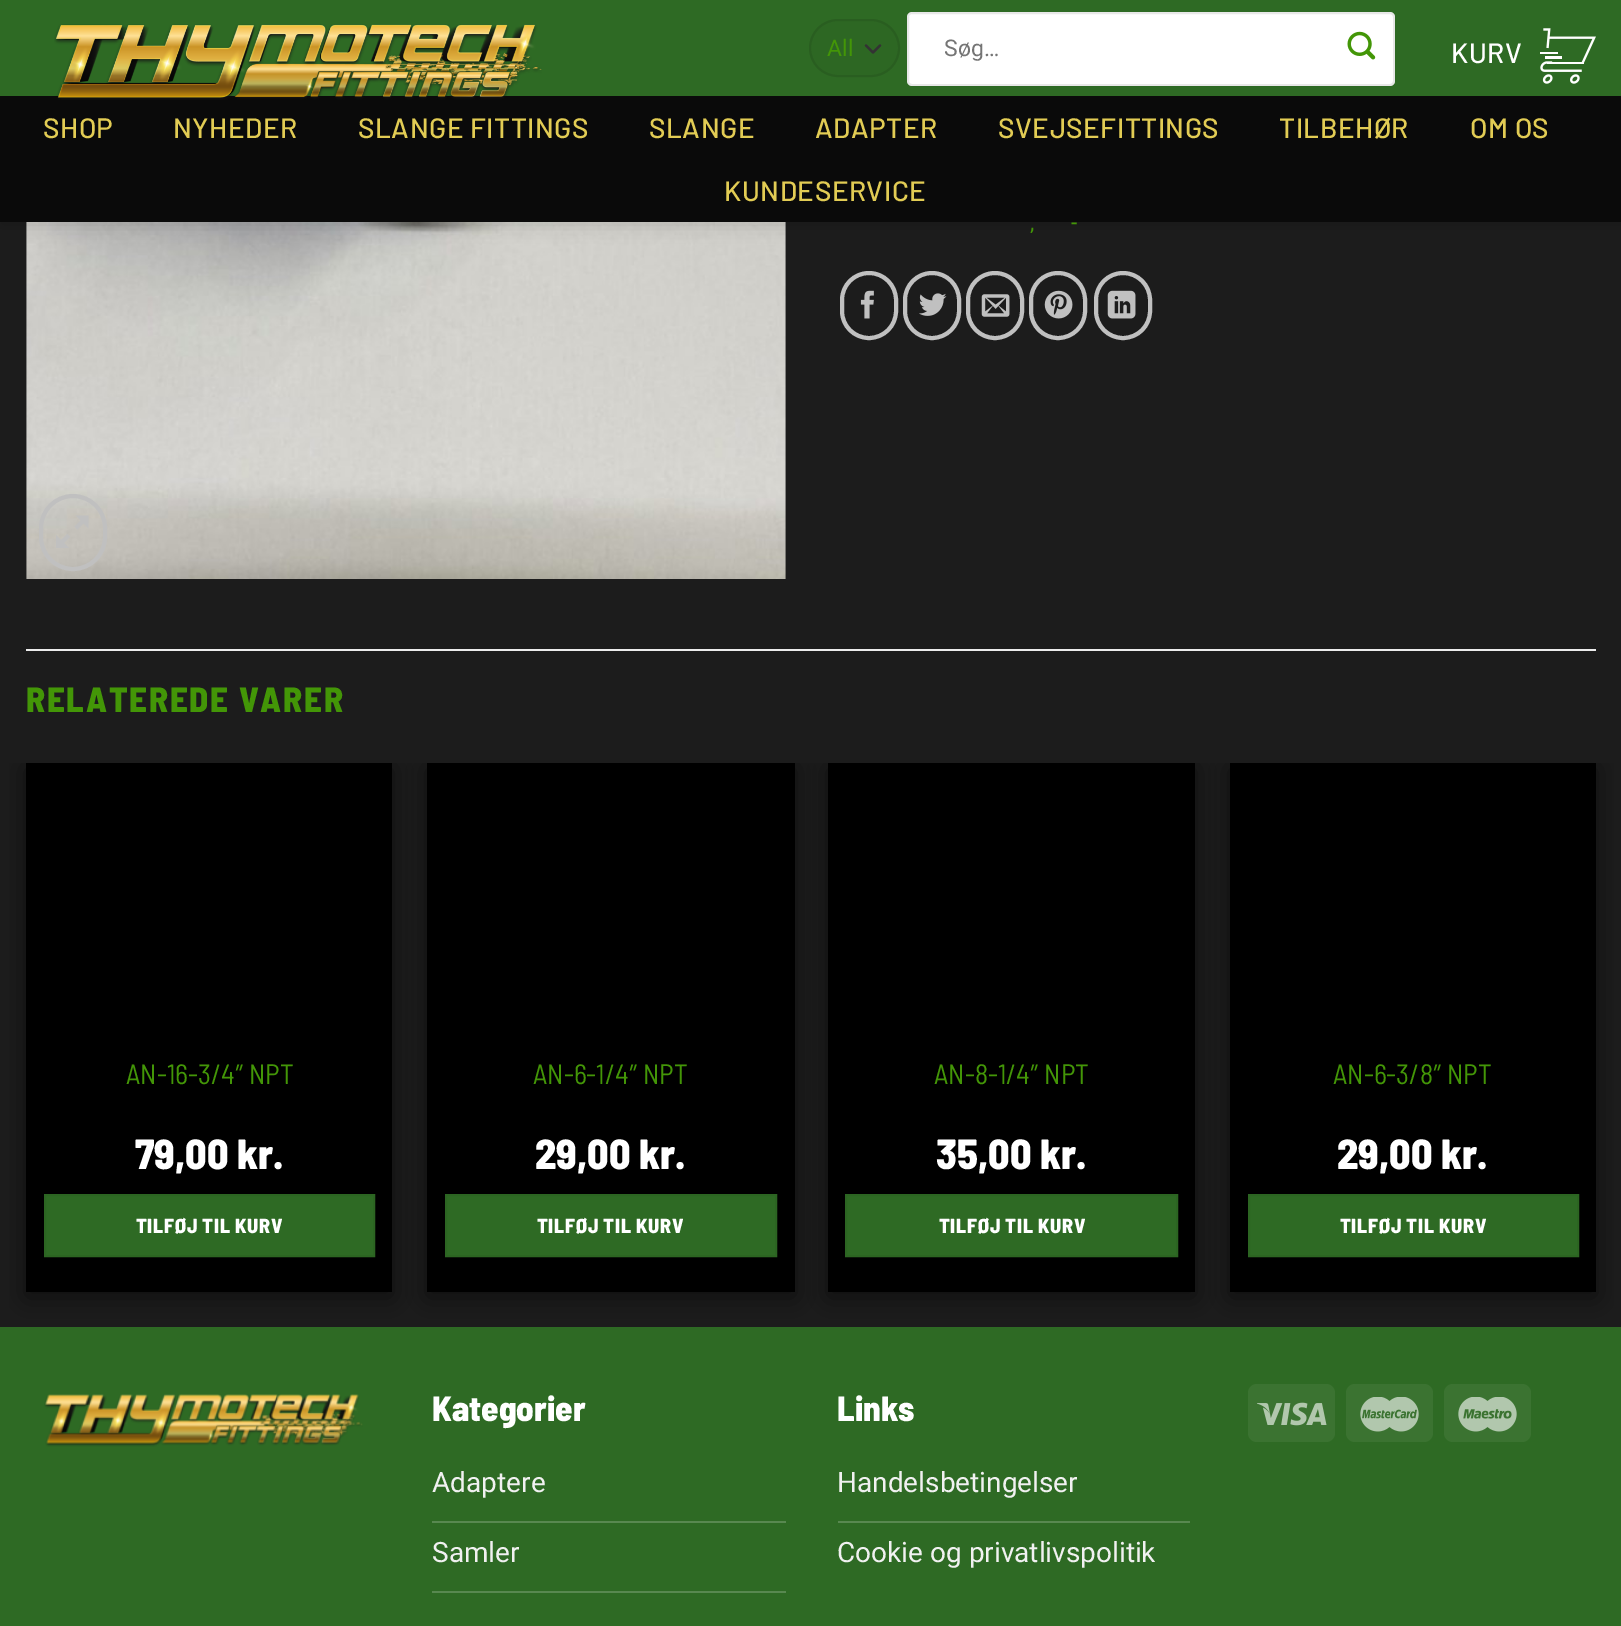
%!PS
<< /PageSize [1621 1626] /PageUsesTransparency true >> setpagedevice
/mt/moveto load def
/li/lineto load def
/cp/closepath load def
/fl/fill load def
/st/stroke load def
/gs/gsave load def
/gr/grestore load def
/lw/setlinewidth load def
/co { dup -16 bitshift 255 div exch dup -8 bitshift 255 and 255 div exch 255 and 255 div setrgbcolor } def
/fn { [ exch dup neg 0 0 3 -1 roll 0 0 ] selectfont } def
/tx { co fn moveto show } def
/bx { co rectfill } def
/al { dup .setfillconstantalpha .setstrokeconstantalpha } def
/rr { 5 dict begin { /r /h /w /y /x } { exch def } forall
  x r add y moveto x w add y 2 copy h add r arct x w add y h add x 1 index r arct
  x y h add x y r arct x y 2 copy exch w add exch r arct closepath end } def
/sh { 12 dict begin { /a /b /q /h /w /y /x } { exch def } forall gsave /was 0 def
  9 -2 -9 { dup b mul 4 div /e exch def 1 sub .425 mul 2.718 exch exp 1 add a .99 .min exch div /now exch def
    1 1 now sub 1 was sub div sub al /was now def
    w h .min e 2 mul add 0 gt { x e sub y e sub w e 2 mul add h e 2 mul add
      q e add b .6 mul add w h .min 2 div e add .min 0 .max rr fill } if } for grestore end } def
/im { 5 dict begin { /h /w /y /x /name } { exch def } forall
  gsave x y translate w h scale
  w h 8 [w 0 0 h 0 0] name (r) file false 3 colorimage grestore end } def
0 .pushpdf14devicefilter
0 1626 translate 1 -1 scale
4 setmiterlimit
0 0 1621 1626 16#1C1C1C bx
(media/4.raw) 26 222 760 357 im
16#000000 co
2 2 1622 222 0 9 .15 sh
0 0 1621 96 16#2E6A24 bx
0 96 1621 126 16#0A0A0A bx
(media/1.raw) 54 24 488 76 im
16#2D6723 co
809 19 91 58 29 rr fl
16#333333 co
2.3 lw
1 setlinecap
1 setlinejoin
866 45.5 mt 873 52.5 li 880 45.5 li st
16#295E20 co
2 lw
0 setlinecap
0 setlinejoin
810 20 89 56 28 rr st
16#FFFFFF co
907 12 488 74 5 rr fl
0.09 al
16#000000 co
908 13 486 72 4 rr st
1 al
(media/2.raw) 1347 31 29 29 im
(media/3.raw) 1540 28 56 56 im
16#C0C0C0 co
4 lw
41 496 64 73 32 rr st
(media/5.raw) 56 515 33 33 im
842 273 54 65 27 rr st
(media/6.raw) 860 290 14 29 im
905 273 54 65 27 rr st
(media/7.raw) 919 293 28 23 im
968 273 54 65 27 rr st
(media/8.raw) 981 294 29 23 im
1031 273 54 65 27 rr st
(media/9.raw) 1044 290 29 29 im
1096 273 54 65 27 rr st
(media/10.raw) 1107 290 29 29 im
26 649 1570 2 16#ECECEC bx
gs
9 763 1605 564 rectclip
16#000000 co
26 768 366 529 0 13 .53 sh
gr
26 763 366 529 16#000000 bx
16#2E6A24 co
45 1195 mt 374 1195 li 374 1256 li 45 1256 li cp gs fl gr
16#2C6522 co
2 lw
st
gs
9 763 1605 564 rectclip
16#000000 co
427 768 368 529 0 13 .53 sh
gr
427 763 368 529 16#000000 bx
16#2E6A24 co
446 1195 mt 776 1195 li 776 1256 li 446 1256 li cp gs fl gr
16#2C6522 co
st
gs
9 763 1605 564 rectclip
16#000000 co
828 768 367 529 0 13 .53 sh
gr
828 763 367 529 16#000000 bx
16#2E6A24 co
846 1195 mt 1177 1195 li 1177 1256 li 846 1256 li cp gs fl gr
16#2C6522 co
st
gs
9 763 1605 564 rectclip
16#000000 co
1230 768 366 529 0 13 .53 sh
gr
1230 763 366 529 16#000000 bx
16#2E6A24 co
1249 1195 mt 1578 1195 li 1578 1256 li 1249 1256 li cp gs fl gr
16#2C6522 co
st
0 1327 1621 299 16#2E6A24 bx
(media/11.raw) 44 1394 319 53 im
432 1521 354 2 16#588850 bx
432 1591 354 2 16#588850 bx
838 1521 352 2 16#588850 bx
16#3B7331 co
1248 1384 87 58 9 rr fl
(media/12.raw) 1257 1402 70 24 im
1346 1384 87 58 9 rr fl
(media/13.raw) 1360 1397 59 35 im
1444 1384 87 58 9 rr fl
(media/14.raw) 1458 1397 59 35 im
(All) 827 56 /Roboto-Regular 23 16#439607 tx
(Søg…) 944 56 /Roboto-Regular 23 16#757575 tx
/Barlow-Medium 28 fn
16#FFFFFF co
1451 63 mt .5 0 (KURV) ashow
16#E2CC54 co
43 138 mt .5 0 (SHOP) ashow
173 138 mt .5 0 (NYHEDER) ashow
358 138 mt .5 0 (SLANGE FITTINGS) ashow
649 138 mt .5 0 (SLANGE) ashow
815 138 mt .5 0 (ADAPTER) ashow
998 138 mt .5 0 (SVEJSEFITTINGS) ashow
1279 138 mt .5 0 (TILBEHØR) ashow
1470 138 mt .5 0 (OM OS) ashow
724 201 mt .5 0 (KUNDESERVICE) ashow
(-) 1071 230 /Roboto-Regular 22 16#439607 tx
(,) 1030 230 /Roboto-Regular 22 16#439607 tx
/BarlowSemiCondensed-ExtraBold 35 fn
26 712 mt 1.75 0 (RELATEREDE VARER) ashow
(AN-16-3/4″ NPT) 126 1084 /BarlowSemiCondensed-Regular 28 16#439607 tx
(79,00 kr.) 135 1169 /BarlowSemiCondensed-ExtraBold 42 16#FFFFFF tx
/BarlowSemiCondensed-ExtraBold 20.25 fn
136 1233 mt .6 0 (TILFØJ TIL KURV) ashow
(AN-6-1/4″ NPT) 533 1084 /BarlowSemiCondensed-Regular 28 16#439607 tx
(29,00 kr.) 535 1169 /BarlowSemiCondensed-ExtraBold 42 16#FFFFFF tx
/BarlowSemiCondensed-ExtraBold 20.25 fn
537 1233 mt .6 0 (TILFØJ TIL KURV) ashow
(AN-8-1/4″ NPT) 934 1084 /BarlowSemiCondensed-Regular 28 16#439607 tx
(35,00 kr.) 936 1169 /BarlowSemiCondensed-ExtraBold 42 16#FFFFFF tx
/BarlowSemiCondensed-ExtraBold 20.25 fn
939 1233 mt .6 0 (TILFØJ TIL KURV) ashow
(AN-6-3/8″ NPT) 1333 1084 /BarlowSemiCondensed-Regular 28 16#439607 tx
(29,00 kr.) 1337 1169 /BarlowSemiCondensed-ExtraBold 42 16#FFFFFF tx
/BarlowSemiCondensed-ExtraBold 20.25 fn
1340 1233 mt .6 0 (TILFØJ TIL KURV) ashow
(Kategorier) 432 1421 /BarlowSemiCondensed-ExtraBold 35 16#FFFFFF tx
(Adaptere) 432 1492 /Roboto-Regular 28 16#F1F1F1 tx
(Samler) 432 1562 /Roboto-Regular 28 16#F1F1F1 tx
(Links) 837 1421 /BarlowSemiCondensed-ExtraBold 35 16#FFFFFF tx
(Handelsbetingelser) 837 1492 /Roboto-Regular 28 16#F1F1F1 tx
(Cookie og privatlivspolitik) 837 1562 /Roboto-Regular 28 16#F1F1F1 tx
.poppdf14devicefilter showpage
